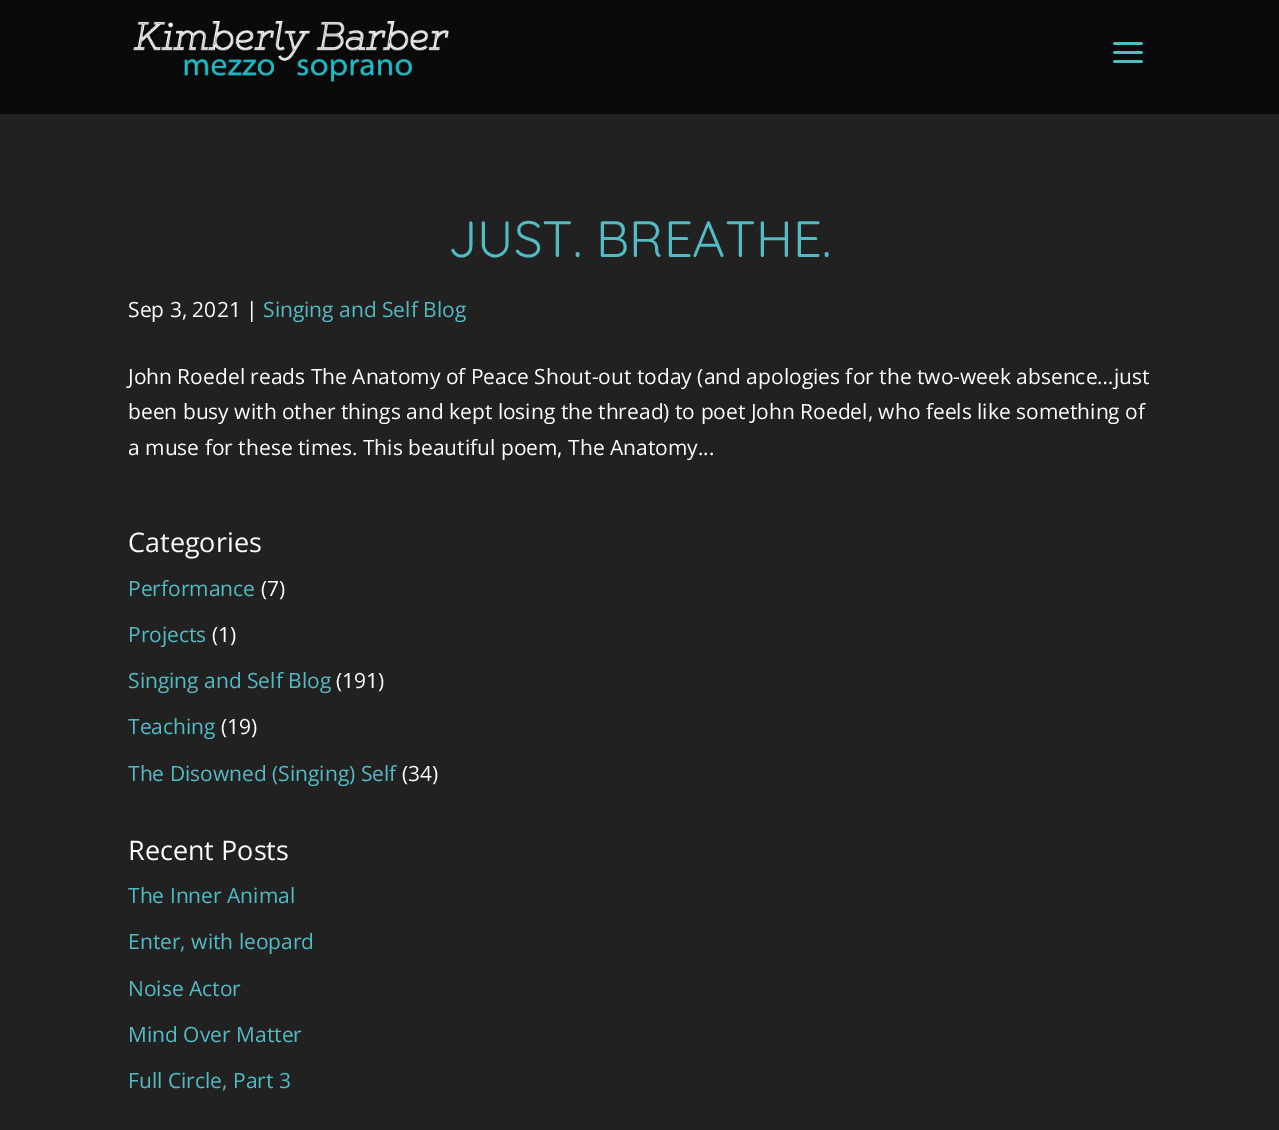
%!PS
<< /PageSize [1279 1130] >> setpagedevice
/co { dup -16 bitshift 255 div exch dup -8 bitshift 255 and 255 div exch 255 and 255 div setrgbcolor } def
/fn { [ exch dup neg 0 0 3 -1 roll 0 0 ] selectfont } def
/tx { co fn moveto show } def
/bx { co rectfill } def
/im { 5 dict begin { /h /w /y /x /name } { exch def } forall
  gsave x y translate w h scale
  w h 8 [w 0 0 h 0 0] name (r) file false 3 colorimage grestore end } def
0 1130 translate 1 -1 scale
4 setmiterlimit
0 0 1279 1130 16#212121 bx
0 0 1279 114 16#0A0A0A bx
(media/1.raw) 133 21 316 61 im
(media/2.raw) 1113 42 30 21 im
(JUST. BREATHE.) 448 257 /Quicksand-Light 51 16#52BCC4 tx
(Sep 3, 2021 |) 128 317 /OpenSans-Regular 21 16#FFFFFF tx
(Singing and Self Blog) 263 317 /OpenSans-Regular 21 16#52BCC4 tx
(John Roedel reads The Anatomy of Peace Shout-out today \(and apologies for the two-week absence…just) 128 384 /OpenSans-Regular 21 16#FFFFFF tx
(been busy with other things and kept losing the thread\) to poet John Roedel, who feels like something of) 128 419 /OpenSans-Regular 21 16#FFFFFF tx
(a muse for these times. This beautiful poem, The Anatomy...) 128 455 /OpenSans-Regular 21 16#FFFFFF tx
(Categories) 128 552 /OpenSans-Regular 27 16#FFFFFF tx
(Performance) 128 596 /OpenSans-Regular 21 16#52BCC4 tx
(\(7\)) 261 596 /OpenSans-Regular 21 16#FFFFFF tx
(Projects) 128 642 /OpenSans-Regular 21 16#52BCC4 tx
(\(1\)) 212 642 /OpenSans-Regular 21 16#FFFFFF tx
(Singing and Self Blog) 128 688 /OpenSans-Regular 21 16#52BCC4 tx
(\(191\)) 336 688 /OpenSans-Regular 21 16#FFFFFF tx
(Teaching) 128 734 /OpenSans-Regular 21 16#52BCC4 tx
(\(19\)) 221 734 /OpenSans-Regular 21 16#FFFFFF tx
(The Disowned \(Singing\) Self) 128 781 /OpenSans-Regular 21 16#52BCC4 tx
(\(34\)) 402 781 /OpenSans-Regular 21 16#FFFFFF tx
(Recent Posts) 128 860 /OpenSans-Regular 27 16#FFFFFF tx
(The Inner Animal) 128 903 /OpenSans-Regular 21 16#52BCC4 tx
(Enter, with leopard) 128 949 /OpenSans-Regular 21 16#52BCC4 tx
(Noise Actor) 128 996 /OpenSans-Regular 21 16#52BCC4 tx
(Mind Over Matter) 128 1042 /OpenSans-Regular 21 16#52BCC4 tx
(Full Circle, Part 3) 128 1088 /OpenSans-Regular 21 16#52BCC4 tx
showpage
